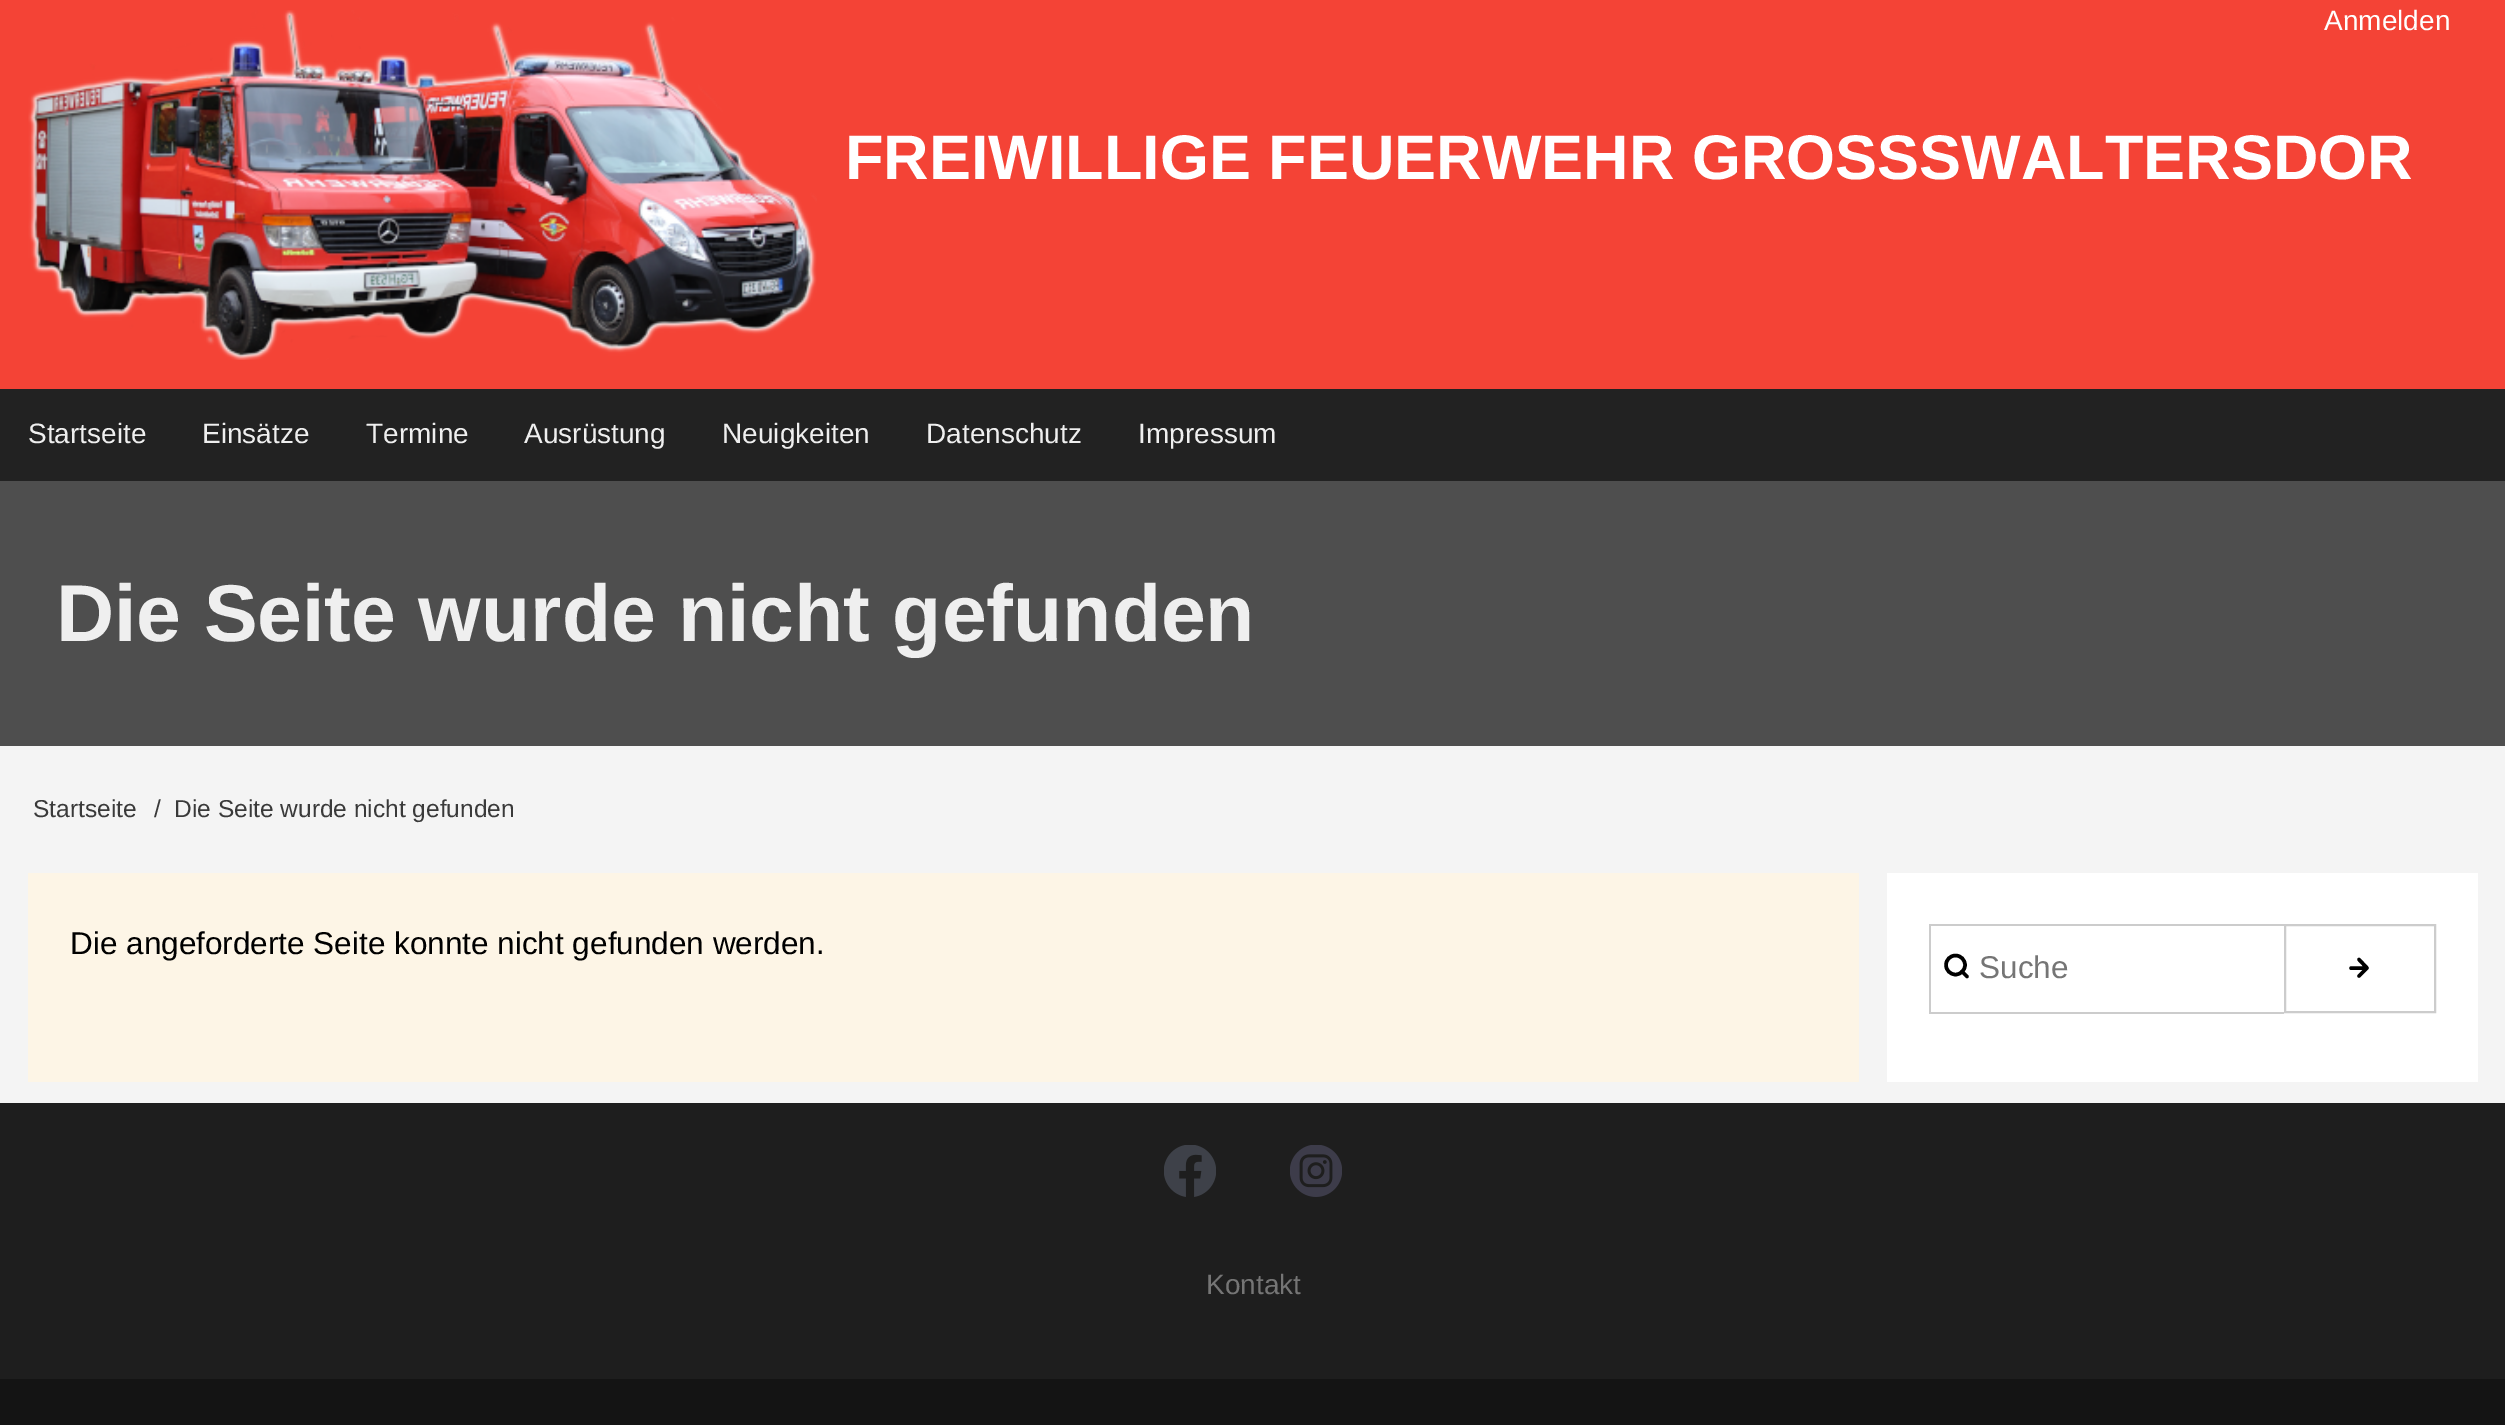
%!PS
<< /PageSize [2505 1425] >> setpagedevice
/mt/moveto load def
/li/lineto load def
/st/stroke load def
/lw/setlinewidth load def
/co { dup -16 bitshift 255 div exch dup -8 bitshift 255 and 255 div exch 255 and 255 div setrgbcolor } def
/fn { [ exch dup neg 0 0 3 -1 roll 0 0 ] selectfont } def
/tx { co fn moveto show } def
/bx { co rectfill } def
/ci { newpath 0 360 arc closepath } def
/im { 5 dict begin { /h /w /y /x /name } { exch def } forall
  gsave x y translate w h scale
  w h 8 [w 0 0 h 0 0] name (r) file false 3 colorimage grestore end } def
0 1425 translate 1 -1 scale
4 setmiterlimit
0 0 2505 1425 16#F44336 bx
(media/1.raw) 28 10 789 350 im
0 389 2505 92 16#222222 bx
0 481 2505 265 16#4E4E4E bx
0 746 2505 357 16#F4F4F4 bx
28 873 1831 209 16#FDF5E6 bx
1887 873 591 209 16#FFFFFF bx
16#000000 co
3.5 lw
1955.5 965 9.5 ci st
1 setlinecap
1 setlinejoin
1967 976.5 mt 1962 971.5 li st
1929 924 355 2 16#CCCCCC bx
1929 1012 355 2 16#CCCCCC bx
1929 924 2 89 16#CCCCCC bx
16#000000 co
2351 968 mt 2366 968 li 2359 959.5 mt 2367 968 li 2359 976 li st
16#CCCCCC co
2 lw
0 setlinecap
0 setlinejoin
2285 925 150 87 rectstroke
0 1103 2505 276 16#1E1E1E bx
(media/2.raw) 1164 1145 52 52 im
(media/3.raw) 1290 1145 52 52 im
0 1379 2505 46 16#141414 bx
(Anmelden) 2324 30 /LiberationSans-Regular 28 16#FFFFFF tx
(FREIWILLIGE FEUERWEHR GROSSSWALTERSDOR) 845 179 /LiberationSans-Bold 63 16#FFFFFF tx
(Startseite) 28 443 /LiberationSans-Regular 28 16#EFEFEF tx
(Einsätze) 202 443 /LiberationSans-Regular 28 16#EFEFEF tx
(Termine) 366 443 /LiberationSans-Regular 28 16#EFEFEF tx
(Ausrüstung) 524 443 /LiberationSans-Regular 28 16#EFEFEF tx
(Neuigkeiten) 722 443 /LiberationSans-Regular 28 16#EFEFEF tx
(Datenschutz) 926 443 /LiberationSans-Regular 28 16#EFEFEF tx
(Impressum) 1138 443 /LiberationSans-Regular 28 16#EFEFEF tx
(Die Seite wurde nicht gefunden) 56 641 /LiberationSans-Bold 80.5 16#EFEFEF tx
(Startseite) 33 817 /LiberationSans-Regular 24.5 16#3A3A3A tx
(/) 154 817 /LiberationSans-Regular 24.5 16#3A3A3A tx
(Die Seite wurde nicht gefunden) 174 817 /LiberationSans-Regular 24.5 16#3A3A3A tx
(Die angeforderte Seite konnte nicht gefunden werden.) 70 954 /LiberationSans-Regular 31.5 16#000000 tx
(Suche) 1979 978 /LiberationSans-Regular 31.5 16#757575 tx
(Kontakt) 1206 1294 /LiberationSans-Regular 28 16#757575 tx
showpage
